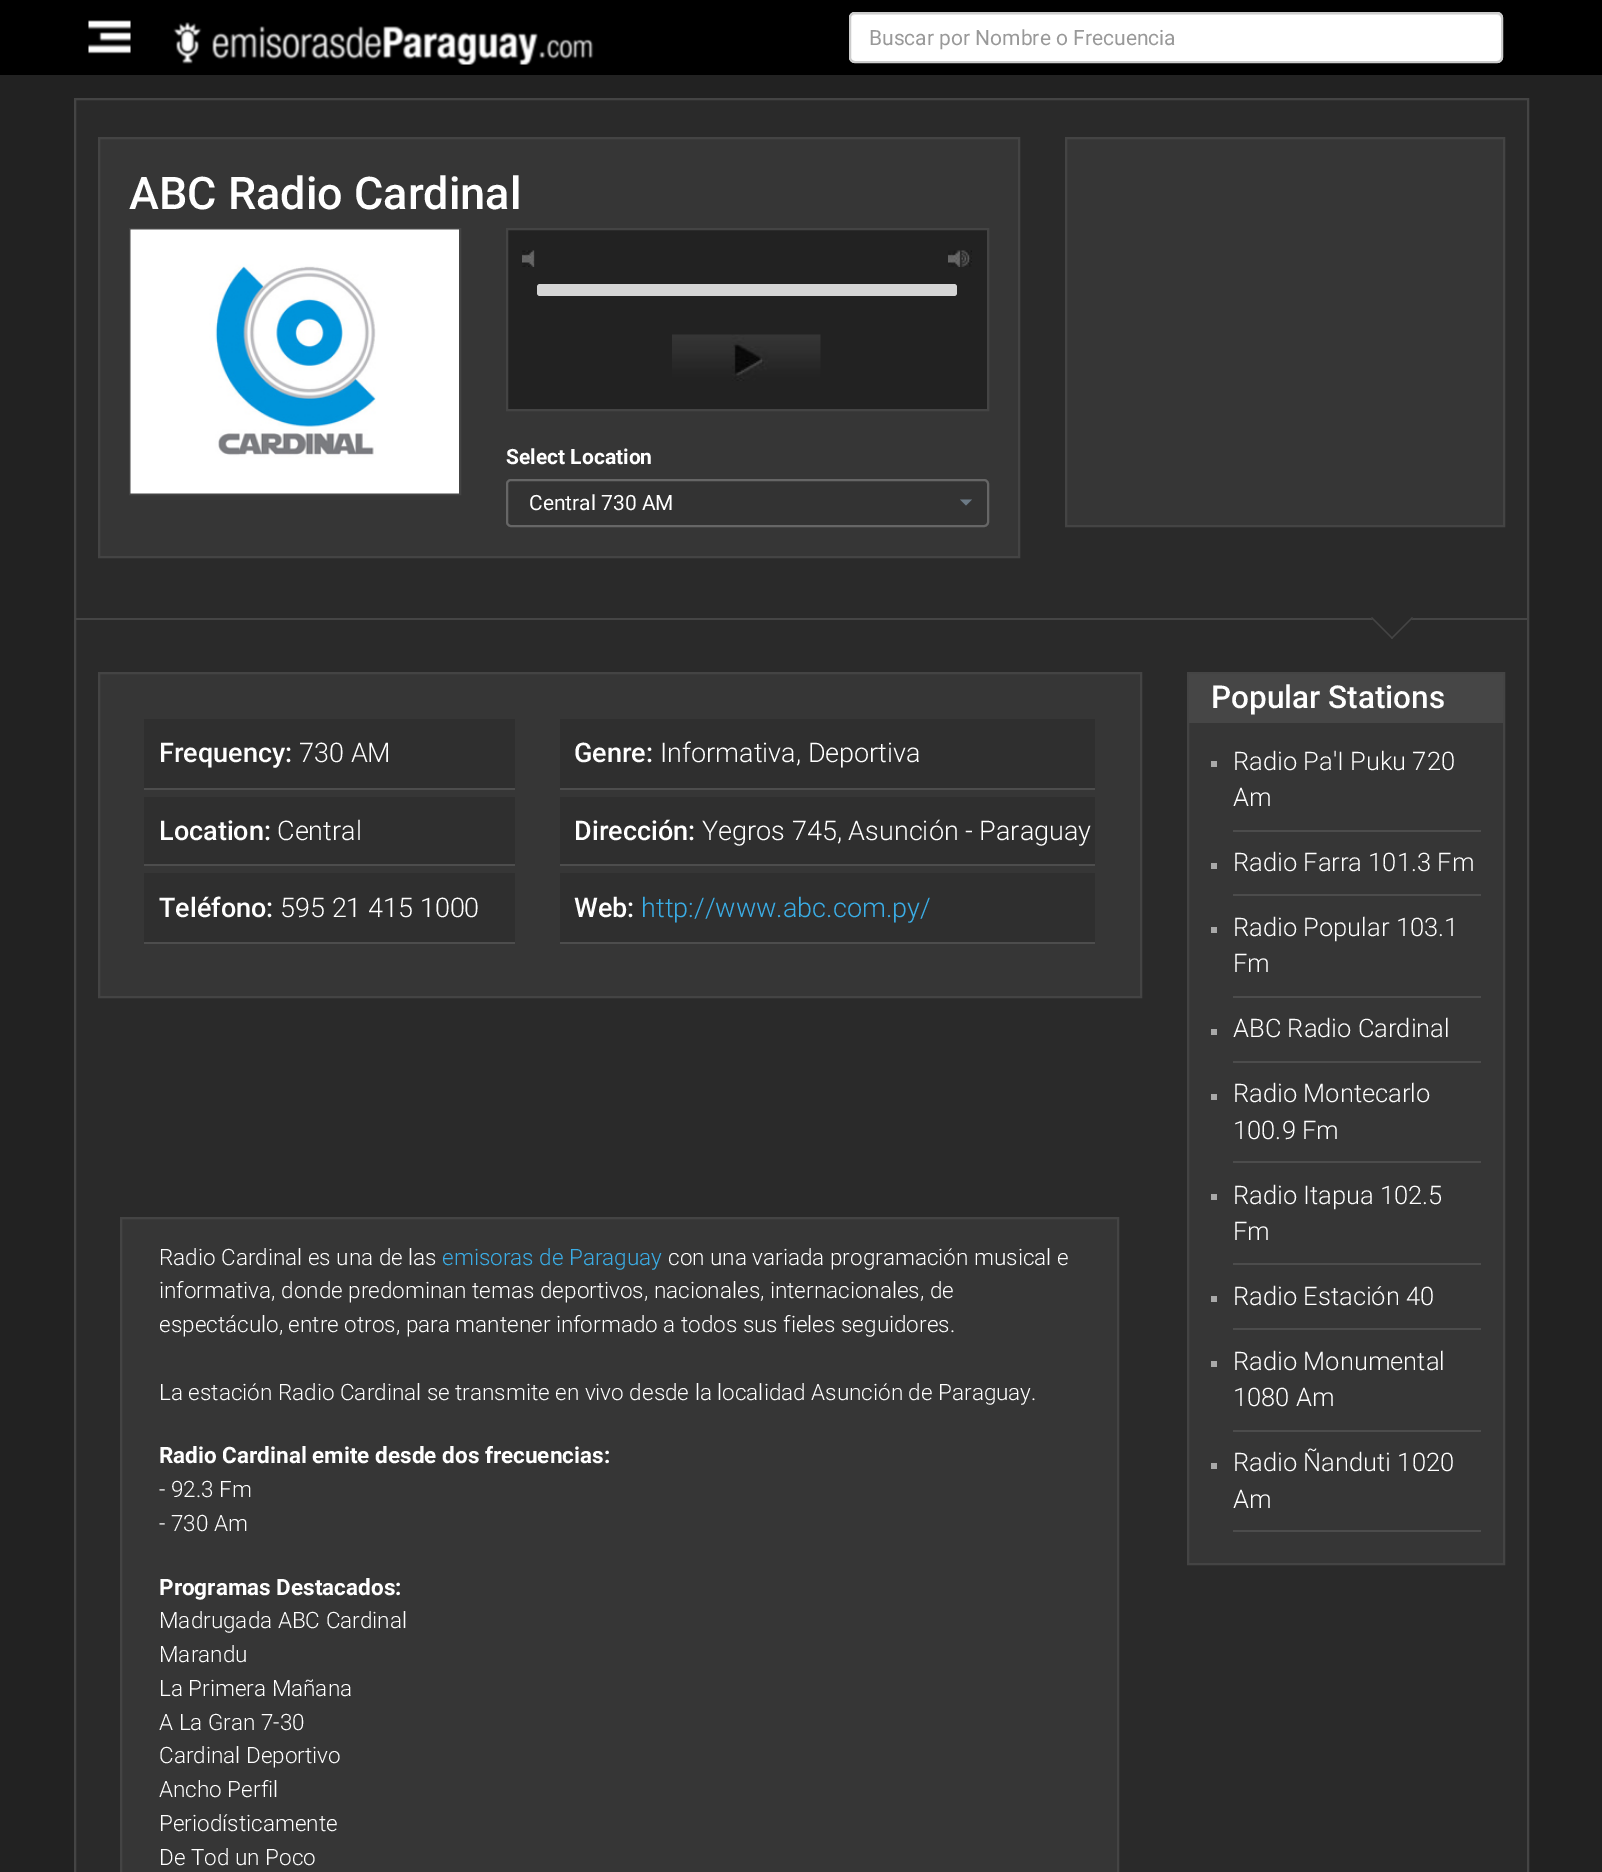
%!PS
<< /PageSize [1602 1872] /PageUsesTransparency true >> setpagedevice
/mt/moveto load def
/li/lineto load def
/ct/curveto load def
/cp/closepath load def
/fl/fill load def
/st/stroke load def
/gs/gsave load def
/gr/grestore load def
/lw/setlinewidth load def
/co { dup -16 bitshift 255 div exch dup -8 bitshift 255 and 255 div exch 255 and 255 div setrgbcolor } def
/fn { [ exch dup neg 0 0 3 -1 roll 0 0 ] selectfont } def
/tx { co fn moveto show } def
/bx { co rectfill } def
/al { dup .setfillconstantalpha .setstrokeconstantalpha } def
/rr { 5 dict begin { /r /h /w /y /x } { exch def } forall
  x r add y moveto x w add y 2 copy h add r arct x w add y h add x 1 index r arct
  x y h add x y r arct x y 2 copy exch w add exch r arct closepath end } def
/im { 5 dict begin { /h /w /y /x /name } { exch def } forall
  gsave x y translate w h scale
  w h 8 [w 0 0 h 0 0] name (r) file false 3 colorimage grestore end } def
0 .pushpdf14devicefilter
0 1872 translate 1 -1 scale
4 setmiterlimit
0 0 1602 1872 16#222222 bx
0 0 1602 75 16#000000 bx
(media/1.raw) 88 20 43 34 im
(media/2.raw) 173 22 421 43 im
16#FFFFFF co
849 12 654 51 6 rr fl
16#ECECEC co
855 15 mt 1497 15 li 1499 15 1502 17 1502 20 ct 1502 19 li 1502 16 1500 14 1497 14 ct 856 14 li 854 14 853 15 852 16 ct cp fl
16#CCCCCC co
2 lw
850 13 652 49 5 rr st
16#2A2A2A co
75 99 mt 1528 99 li 1528 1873 li 75 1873 li cp gs fl gr
16#444444 co
st
75 618 1452 2 16#454545 bx
16#363636 co
99 138 mt 1019 138 li 1019 557 li 99 557 li cp gs fl gr
16#444444 co
st
130 229 330 265 rectstroke
(media/3.raw) 130 229 329 265 im
16#222222 co
507 229 mt 988 229 li 988 410 li 507 410 li cp gs fl gr
16#444444 co
st
(media/4.raw) 522 250 13 17 im
(media/5.raw) 948 250 24 17 im
16#2F2F2F co
537 284 420 12 3 rr fl
0.8 al
16#FFFFFF co
537 284 420 12 3 rr fl
1 al
(media/6.raw) 672 334 149 47 im
16#333333 co
507 480 481 46 4 rr gs fl gr
16#666666 co
st
16#6C7A86 co
960 499.5 mt 972 499.5 li 966 505.5 li cp fl
16#363636 co
1066 138 mt 1504 138 li 1504 526 li 1066 526 li cp gs fl gr
16#444444 co
st
16#2A2A2A co
1392 597 mt 1413 618 li 1392 639 li 1371 618 li cp fl
16#454545 co
1412 617 mt 1413 618 li 1392 639 li 1391 638 li cp fl
1372 617 mt 1393 638 li 1392 639 li 1371 618 li cp fl
16#363636 co
99 673 mt 1141 673 li 1141 997 li 99 997 li cp gs fl gr
16#444444 co
st
144 719 371 69 16#2F2F2F bx
144 788 371 2 16#4D4D4D bx
144 797 371 67 16#2F2F2F bx
144 864 371 2 16#4D4D4D bx
144 873 371 69 16#2F2F2F bx
144 942 371 2 16#4D4D4D bx
560 719 535 69 16#2F2F2F bx
560 788 535 2 16#4D4D4D bx
560 797 535 67 16#2F2F2F bx
560 864 535 2 16#4D4D4D bx
560 873 535 69 16#2F2F2F bx
560 942 535 2 16#4D4D4D bx
16#363636 co
121 1218 mt 1118 1218 li 1118 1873 li 121 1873 li cp gs fl gr
16#444444 co
st
1189 723 314 840 16#363636 bx
16#444444 co
1188 673 316 891 rectstroke
1189 674 314 49 16#464646 bx
1233 830 248 2 16#4C4C4C bx
1211 761 6 6 16#A9A9A9 bx
1233 894 248 2 16#4C4C4C bx
1211 863 6 6 16#A9A9A9 bx
1233 996 248 2 16#4C4C4C bx
1211 927 6 6 16#A9A9A9 bx
1233 1061 248 2 16#4C4C4C bx
1211 1029 6 6 16#A9A9A9 bx
1233 1161 248 2 16#4C4C4C bx
1211 1094 6 6 16#A9A9A9 bx
1233 1263 248 2 16#4C4C4C bx
1211 1194 6 6 16#A9A9A9 bx
1233 1328 248 2 16#4C4C4C bx
1211 1296 6 6 16#A9A9A9 bx
1233 1430 248 2 16#4C4C4C bx
1211 1361 6 6 16#A9A9A9 bx
1233 1530 248 2 16#4C4C4C bx
1211 1463 6 6 16#A9A9A9 bx
(Buscar por Nombre o Frecuencia) 869 45 /Roboto-Regular 21 16#999999 tx
(ABC Radio Cardinal) 129 209 /Roboto-Medium 45 16#FFFFFF tx
(Select Location) 506 464 /Roboto-Bold 21 16#FFFFFF tx
(Central 730 AM) 529 510 /Roboto-Regular 21 16#FFFFFF tx
(Frequency:) 159 762 /Roboto-Medium 27 16#FFFFFF tx
(730 AM) 299 762 /Roboto-Light 27 16#FFFFFF tx
(Location:) 159 840 /Roboto-Medium 27 16#FFFFFF tx
(Central) 277 840 /Roboto-Light 27 16#FFFFFF tx
(Teléfono:) 159 917 /Roboto-Medium 27 16#FFFFFF tx
(595 21 415 1000) 280 917 /Roboto-Light 27 16#FFFFFF tx
(Genre:) 574 762 /Roboto-Medium 27 16#FFFFFF tx
(Informativa, Deportiva) 660 762 /Roboto-Light 27 16#FFFFFF tx
(Dirección:) 574 840 /Roboto-Medium 27 16#FFFFFF tx
(Yegros 745, Asunción - Paraguay) 702 840 /Roboto-Light 27 16#FFFFFF tx
(Web:) 574 917 /Roboto-Medium 27 16#FFFFFF tx
(http://www.abc.com.py/) 641 917 /Roboto-Light 27 16#3AADE6 tx
(Radio Cardinal es una de las) 159 1265 /Roboto-Light 22.5 16#FFFFFF tx
(emisoras de Paraguay) 442 1265 /Roboto-Light 22.5 16#3AADE6 tx
(con una variada programación musical e) 668 1265 /Roboto-Light 22.5 16#FFFFFF tx
(informativa, donde predominan temas deportivos, nacionales, internacionales, de) 159 1298 /Roboto-Light 22.5 16#FFFFFF tx
(espectáculo, entre otros, para mantener informado a todos sus fieles seguidores.) 159 1332 /Roboto-Light 22.5 16#FFFFFF tx
(La estación Radio Cardinal se transmite en vivo desde la localidad Asunción de Paraguay.) 159 1400 /Roboto-Light 22.5 16#FFFFFF tx
(Radio Cardinal emite desde dos frecuencias:) 159 1463 /Roboto-Bold 22.5 16#FFFFFF tx
(- 92.3 Fm) 159 1497 /Roboto-Light 22.5 16#FFFFFF tx
(- 730 Am) 159 1531 /Roboto-Light 22.5 16#FFFFFF tx
(Programas Destacados:) 159 1595 /Roboto-Bold 22.5 16#FFFFFF tx
(Madrugada ABC Cardinal) 159 1628 /Roboto-Light 22.5 16#FFFFFF tx
(Marandu) 159 1662 /Roboto-Light 22.5 16#FFFFFF tx
(La Primera Mañana) 159 1696 /Roboto-Light 22.5 16#FFFFFF tx
(A La Gran 7-30) 159 1730 /Roboto-Light 22.5 16#FFFFFF tx
(Cardinal Deportivo) 159 1763 /Roboto-Light 22.5 16#FFFFFF tx
(Ancho Perfil) 159 1797 /Roboto-Light 22.5 16#FFFFFF tx
(Periodísticamente) 159 1831 /Roboto-Light 22.5 16#FFFFFF tx
(De Tod un Poco) 159 1865 /Roboto-Light 22.5 16#FFFFFF tx
(Popular Stations) 1211 708 /Roboto-Medium 31.5 16#FFFFFF tx
(Radio Pa'I Puku 720) 1233 770 /Roboto-Light 25.5 16#FFFFFF tx
(Am) 1233 806 /Roboto-Light 25.5 16#FFFFFF tx
(Radio Farra 101.3 Fm) 1233 871 /Roboto-Light 25.5 16#FFFFFF tx
(Radio Popular 103.1) 1233 936 /Roboto-Light 25.5 16#FFFFFF tx
(Fm) 1233 972 /Roboto-Light 25.5 16#FFFFFF tx
(ABC Radio Cardinal) 1233 1037 /Roboto-Light 25.5 16#FFFFFF tx
(Radio Montecarlo) 1233 1102 /Roboto-Light 25.5 16#FFFFFF tx
(100.9 Fm) 1233 1139 /Roboto-Light 25.5 16#FFFFFF tx
(Radio Itapua 102.5) 1233 1204 /Roboto-Light 25.5 16#FFFFFF tx
(Fm) 1233 1240 /Roboto-Light 25.5 16#FFFFFF tx
(Radio Estación 40) 1233 1305 /Roboto-Light 25.5 16#FFFFFF tx
(Radio Monumental) 1233 1370 /Roboto-Light 25.5 16#FFFFFF tx
(1080 Am) 1233 1406 /Roboto-Light 25.5 16#FFFFFF tx
(Radio Ñanduti 1020) 1233 1471 /Roboto-Light 25.5 16#FFFFFF tx
(Am) 1233 1508 /Roboto-Light 25.5 16#FFFFFF tx
.poppdf14devicefilter showpage
